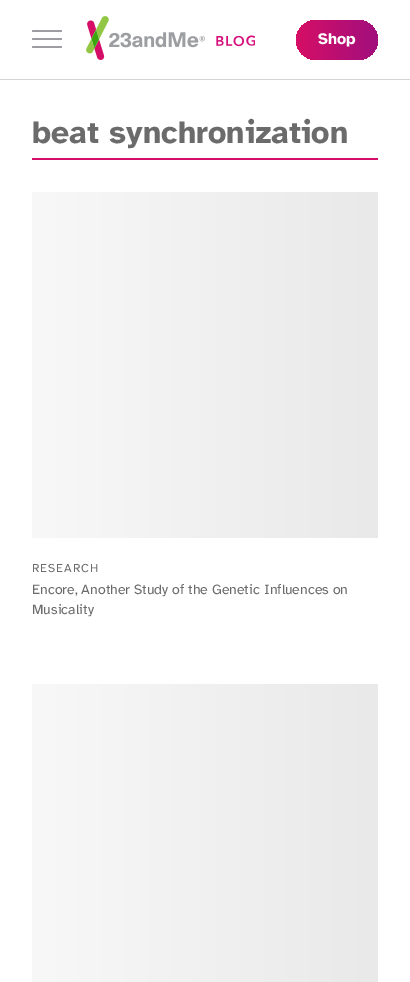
%!PS
<< /PageSize [410 982] >> setpagedevice
/mt/moveto load def
/li/lineto load def
/cp/closepath load def
/fl/fill load def
/gs/gsave load def
/gr/grestore load def
/co { dup -16 bitshift 255 div exch dup -8 bitshift 255 and 255 div exch 255 and 255 div setrgbcolor } def
/fn { [ exch dup neg 0 0 3 -1 roll 0 0 ] selectfont } def
/tx { co fn moveto show } def
/bx { co rectfill } def
/rr { 5 dict begin { /r /h /w /y /x } { exch def } forall
  x r add y moveto x w add y 2 copy h add r arct x w add y h add x 1 index r arct
  x y h add x y r arct x y 2 copy exch w add exch r arct closepath end } def
/im { 5 dict begin { /h /w /y /x /name } { exch def } forall
  gsave x y translate w h scale
  w h 8 [w 0 0 h 0 0] name (r) file false 3 colorimage grestore end } def
0 982 translate 1 -1 scale
4 setmiterlimit
0 0 410 982 16#FFFFFF bx
0 79 410 1 16#D4D6D6 bx
16#9C9EA1 co
32 30 30 2 1 rr fl
32 38 30 2 1 rr fl
32 46 30 2 1 rr fl
(media/1.raw) 86 16 169 44 im
gs 296 20 82 40 20 rr clip newpath
<< /ShadingType 2 /ColorSpace /DeviceRGB /Coords [296 40 378 40] /Extend [true true] /Function << /FunctionType 2 /Domain [0 1] /C0 [.839 .055 .4] /C1 [.631 .055 .49] /N 1 >> >> shfill gr
32 158 346 2 16#D50F67 bx
gs 32 192 mt 378 192 li 378 538 li 32 538 li cp clip newpath
<< /ShadingType 2 /ColorSpace /DeviceRGB /Coords [32 365 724 365] /Extend [true true] /Function << /FunctionType 3 /Domain [0 1] /Functions [<< /FunctionType 2 /Domain [0 1] /C0 [.973 .973 .973] /C1 [.914 .914 .914] /N 1 >> << /FunctionType 2 /Domain [0 1] /C0 [.914 .914 .914] /C1 [.973 .973 .973] /N 1 >>] /Bounds [.5] /Encode [0 1 0 1] >> >> shfill gr
gs 32 684 mt 378 684 li 378 982 li 32 982 li cp clip newpath
<< /ShadingType 2 /ColorSpace /DeviceRGB /Coords [32 857 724 857] /Extend [true true] /Function << /FunctionType 3 /Domain [0 1] /Functions [<< /FunctionType 2 /Domain [0 1] /C0 [.973 .973 .973] /C1 [.914 .914 .914] /N 1 >> << /FunctionType 2 /Domain [0 1] /C0 [.914 .914 .914] /C1 [.973 .973 .973] /N 1 >>] /Bounds [.5] /Encode [0 1 0 1] >> >> shfill gr
(Shop) 318 44 /AtkinsonHyperlegible-Bold 16 16#FFFFFF tx
(beat synchronization) 32 143 /AtkinsonHyperlegible-Bold 32 16#6B6B6B tx
/AtkinsonHyperlegible-Regular 12 fn
32 572 mt 1 0 (RESEARCH) ashow
(Encore, Another Study of the Genetic Influences on) 32 594 /AtkinsonHyperlegible-Regular 14 16#6B6B6B tx
(Musicality) 32 614 /AtkinsonHyperlegible-Regular 14 16#6B6B6B tx
showpage
